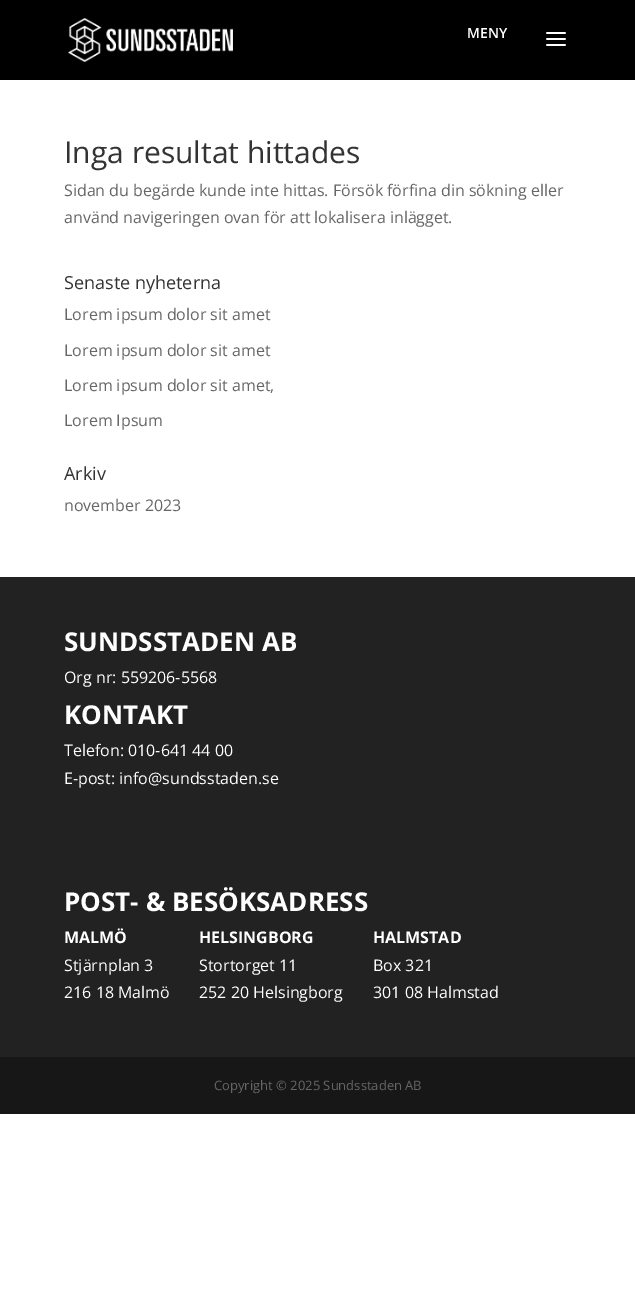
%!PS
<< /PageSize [635 1313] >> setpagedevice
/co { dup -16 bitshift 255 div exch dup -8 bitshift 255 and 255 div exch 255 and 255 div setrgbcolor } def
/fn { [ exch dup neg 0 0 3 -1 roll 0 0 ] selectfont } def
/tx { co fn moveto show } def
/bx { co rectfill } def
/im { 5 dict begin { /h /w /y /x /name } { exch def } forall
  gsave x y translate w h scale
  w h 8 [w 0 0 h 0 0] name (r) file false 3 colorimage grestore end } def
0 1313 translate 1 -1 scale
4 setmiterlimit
0 0 635 1313 16#FFFFFF bx
0 0 635 80 16#000000 bx
(media/1.raw) 68 18 165 44 im
(media/2.raw) 546 32 20 14 im
0 577 635 480 16#222222 bx
0 1057 635 57 16#171717 bx
(MENY) 467 38 /OpenSans-SemiBold 14 16#FFFFFF tx
(Inga resultat hittades) 64 163 /OpenSans-Regular 30 16#333333 tx
(Sidan du begärde kunde inte hittas. Försök förfina din sökning eller) 64 196 /OpenSans-Regular 16 16#666666 tx
(använd navigeringen ovan för att lokalisera inlägget.) 64 223 /OpenSans-Regular 16 16#666666 tx
(Senaste nyheterna) 64 289 /OpenSans-Regular 18 16#333333 tx
(Lorem ipsum dolor sit amet) 64 320 /OpenSans-Regular 16 16#666666 tx
(Lorem ipsum dolor sit amet) 64 356 /OpenSans-Regular 16 16#666666 tx
(Lorem ipsum dolor sit amet,) 64 391 /OpenSans-Regular 16 16#666666 tx
(Lorem Ipsum) 64 426 /OpenSans-Regular 16 16#666666 tx
(Arkiv) 64 480 /OpenSans-Regular 18 16#333333 tx
(november 2023) 64 511 /OpenSans-Regular 16 16#666666 tx
(SUNDSSTADEN AB) 64 651 /OpenSans-Bold 26 16#FFFFFF tx
(Org nr: 559206-5568) 64 683 /OpenSans-Regular 16 16#FFFFFF tx
(KONTAKT) 64 724 /OpenSans-Bold 26 16#FFFFFF tx
(Telefon: 010-641 44 00) 64 756 /OpenSans-Regular 16 16#FFFFFF tx
(E-post: info@sundsstaden.se) 64 784 /OpenSans-Regular 16 16#FFFFFF tx
(POST- & BESÖKSADRESS) 64 911 /OpenSans-Bold 26 16#FFFFFF tx
(MALMÖ) 64 943 /OpenSans-Bold 16 16#FFFFFF tx
(Stjärnplan 3) 64 971 /OpenSans-Regular 16 16#FFFFFF tx
(216 18 Malmö) 64 998 /OpenSans-Regular 16 16#FFFFFF tx
(HELSINGBORG) 199 943 /OpenSans-Bold 16 16#FFFFFF tx
(Stortorget 11) 199 971 /OpenSans-Regular 16 16#FFFFFF tx
(252 20 Helsingborg) 199 998 /OpenSans-Regular 16 16#FFFFFF tx
(HALMSTAD) 373 943 /OpenSans-Bold 16 16#FFFFFF tx
(Box 321) 373 971 /OpenSans-Regular 16 16#FFFFFF tx
(301 08 Halmstad) 373 998 /OpenSans-Regular 16 16#FFFFFF tx
(Copyright © 2025 Sundsstaden AB) 214 1090 /OpenSans-Regular 13 16#666666 tx
showpage
